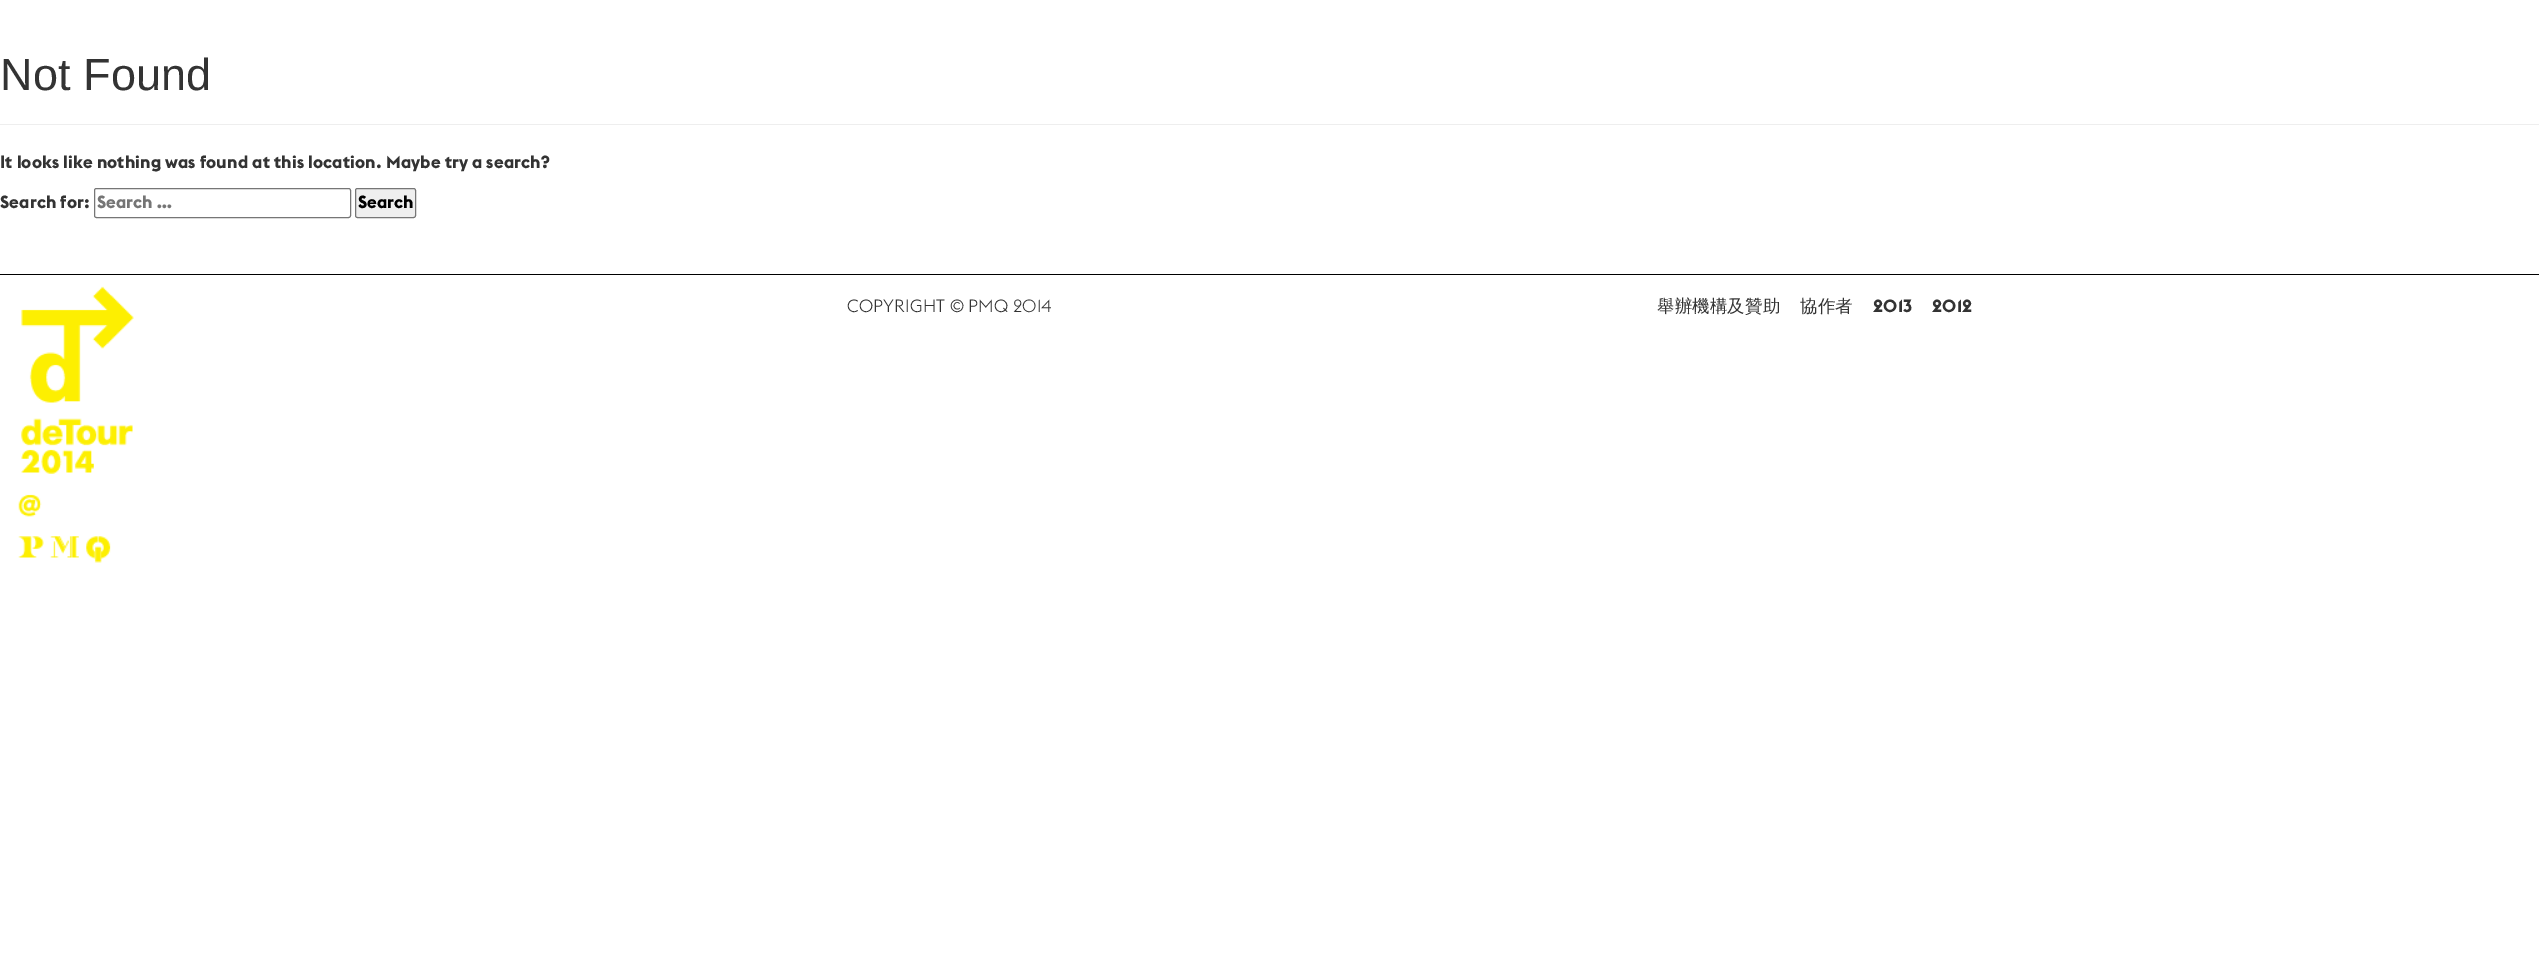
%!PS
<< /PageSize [2539 972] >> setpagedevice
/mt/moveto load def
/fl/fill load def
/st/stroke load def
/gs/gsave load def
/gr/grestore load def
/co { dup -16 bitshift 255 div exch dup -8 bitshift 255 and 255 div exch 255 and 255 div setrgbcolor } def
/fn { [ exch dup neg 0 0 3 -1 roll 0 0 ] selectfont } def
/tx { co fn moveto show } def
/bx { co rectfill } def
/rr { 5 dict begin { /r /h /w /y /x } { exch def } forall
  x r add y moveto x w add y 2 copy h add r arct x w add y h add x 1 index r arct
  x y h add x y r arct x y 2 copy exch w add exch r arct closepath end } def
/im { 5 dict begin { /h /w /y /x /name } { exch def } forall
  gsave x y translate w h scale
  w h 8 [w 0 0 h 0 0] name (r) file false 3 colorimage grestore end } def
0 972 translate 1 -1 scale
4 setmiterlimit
0 0 2539 972 16#FFFFFF bx
0 124 2539 1 16#EEEEEE bx
16#767676 co
94.5 188.5 256 29 2 rr st
16#EFEFEF co
355.5 188.5 60 29 2 rr gs fl gr
16#767676 co
st
(media/1.raw) 21 286 113 188 im
(media/2.raw) 18 494 93 69 im
0 274 2539 1 16#000000 bx
/LiberationSans-Regular 45 fn
16#333333 co
0 90 mt .12 0 (Not Found) ashow
/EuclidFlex-Bold 17.5 fn
0 168 mt .12 0 (It looks like nothing was found at this location. Maybe try a search?) ashow
0 208 mt .12 0 (Search for:) ashow
(Search …) 97 208 /EuclidFlex-Bold 17.5 16#757575 tx
(Search) 358 208 /EuclidFlex-Bold 17.5 16#000000 tx
/EuclidFlex-Light 17.5 fn
16#333333 co
847 312 mt .12 0 (COPYRIGHT © PMQ 2014) ashow
/WenQuanYiZenHei-Medium 17.5 fn
1657 312 mt .12 0 (舉辦機構及贊助) ashow
1800 312 mt .12 0 (協作者) ashow
/EuclidFlex-Bold 17.5 fn
1873 312 mt .12 0 (2013) ashow
1932 312 mt .12 0 (2012) ashow
showpage
